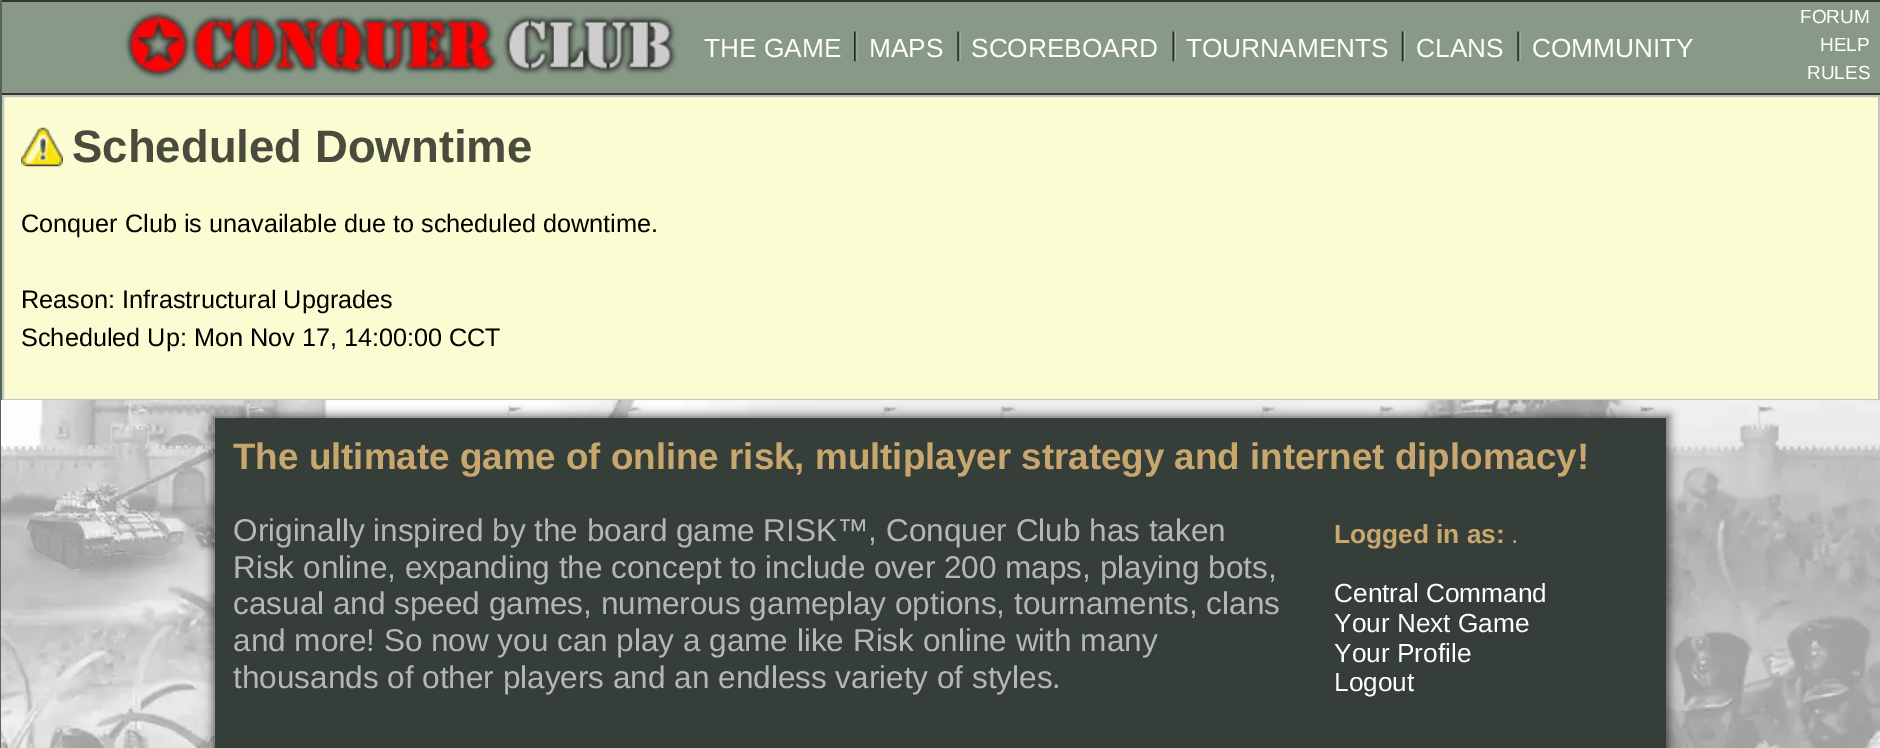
%!PS
<< /PageSize [1880 748] /PageUsesTransparency true >> setpagedevice
/mt/moveto load def
/li/lineto load def
/cp/closepath load def
/fl/fill load def
/st/stroke load def
/gs/gsave load def
/gr/grestore load def
/lw/setlinewidth load def
/co { dup -16 bitshift 255 div exch dup -8 bitshift 255 and 255 div exch 255 and 255 div setrgbcolor } def
/fn { [ exch dup neg 0 0 3 -1 roll 0 0 ] selectfont } def
/tx { co fn moveto show } def
/bx { co rectfill } def
/al { dup .setfillconstantalpha .setstrokeconstantalpha } def
/rr { 5 dict begin { /r /h /w /y /x } { exch def } forall
  x r add y moveto x w add y 2 copy h add r arct x w add y h add x 1 index r arct
  x y h add x y r arct x y 2 copy exch w add exch r arct closepath end } def
/sh { 12 dict begin { /a /b /q /h /w /y /x } { exch def } forall gsave /was 0 def
  9 -2 -9 { dup b mul 4 div /e exch def 1 sub .425 mul 2.718 exch exp 1 add a .99 .min exch div /now exch def
    1 1 now sub 1 was sub div sub al /was now def
    w h .min e 2 mul add 0 gt { x e sub y e sub w e 2 mul add h e 2 mul add
      q e add b .6 mul add w h .min 2 div e add .min 0 .max rr fill } if } for grestore end } def
/im { 5 dict begin { /h /w /y /x /name } { exch def } forall
  gsave x y translate w h scale
  w h 8 [w 0 0 h 0 0] name (r) file false 3 colorimage grestore end } def
0 .pushpdf14devicefilter
0 748 translate 1 -1 scale
4 setmiterlimit
0 0 1880 748 16#FFFFFF bx
0 0 2 748 16#556655 bx
2 2 1878 91 16#889988 bx
2 0 1878 2 16#333333 bx
2 93 1878 2 16#333333 bx
(media/1.raw) 124 11 553 68 im
(media/2.raw) 854 31 4 31 im
(media/3.raw) 957 31 4 31 im
(media/4.raw) 1172 31 4 31 im
(media/5.raw) 1401 31 5 31 im
(media/3.raw) 1517 31 4 31 im
16#FCFCD2 co
3 96 mt 1879 96 li 1879 400 li 3 400 li cp gs fl gr
16#C3C3C3 co
2 lw
st
(media/6.raw) 21 127 42 40 im
(media/7.raw) 1 400 1879 348 im
16#000000 co
212 415 1458 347 0 4.5 .5 sh
215 418 1451 330 16#363E39 bx
(THE GAME) 704 57 /LiberationSans-Regular 26.25 16#FFFFFF tx
(MAPS) 869 57 /LiberationSans-Regular 26.25 16#FFFFFF tx
(SCOREBOARD) 971 57 /LiberationSans-Regular 26.25 16#FFFFFF tx
(TOURNAMENTS) 1186 57 /LiberationSans-Regular 26.25 16#FFFFFF tx
(CLANS) 1416 57 /LiberationSans-Regular 26.25 16#FFFFFF tx
(COMMUNITY) 1532 57 /LiberationSans-Regular 26.25 16#FFFFFF tx
(FORUM) 1800 23 /LiberationSans-Regular 19 16#FFFFFF tx
(HELP) 1820 51 /LiberationSans-Regular 19 16#FFFFFF tx
(RULES) 1807 79 /LiberationSans-Regular 19 16#FFFFFF tx
(Scheduled Downtime) 72 162 /LiberationSans-Bold 45.5 16#494B3D tx
(Conquer Club is unavailable due to scheduled downtime.) 21 232 /LiberationSans-Regular 25.25 16#000000 tx
(Reason: Infrastructural Upgrades) 21 308 /LiberationSans-Regular 25.25 16#000000 tx
(Scheduled Up: Mon Nov 17, 14:00:00 CCT) 21 346 /LiberationSans-Regular 25.25 16#000000 tx
(The ultimate game of online risk, multiplayer strategy and internet diplomacy!) 233 469 /LiberationSans-Bold 36.75 16#C7A76E tx
(Originally inspired by the board game RISK™, Conquer Club has taken) 233 541 /LiberationSans-Regular 31.5 16#B5B7B6 tx
(Risk online, expanding the concept to include over 200 maps, playing bots,) 233 578 /LiberationSans-Regular 31.5 16#B5B7B6 tx
(casual and speed games, numerous gameplay options, tournaments, clans) 233 614 /LiberationSans-Regular 31.5 16#B5B7B6 tx
(and more! So now you can play a game like Risk online with many) 233 651 /LiberationSans-Regular 31.5 16#B5B7B6 tx
(thousands of other players and an endless variety of styles.) 233 688 /LiberationSans-Regular 31.5 16#B5B7B6 tx
(Logged in as:) 1334 543 /LiberationSans-Bold 26.25 16#C7A76E tx
(.) 1511 543 /LiberationSans-Regular 26.25 16#C7A76E tx
(Central Command) 1334 602 /LiberationSans-Regular 26.25 16#FFFFFF tx
(Your Next Game) 1334 632 /LiberationSans-Regular 26.25 16#FFFFFF tx
(Your Profile) 1334 662 /LiberationSans-Regular 26.25 16#FFFFFF tx
(Logout) 1334 691 /LiberationSans-Regular 26.25 16#FFFFFF tx
.poppdf14devicefilter showpage
